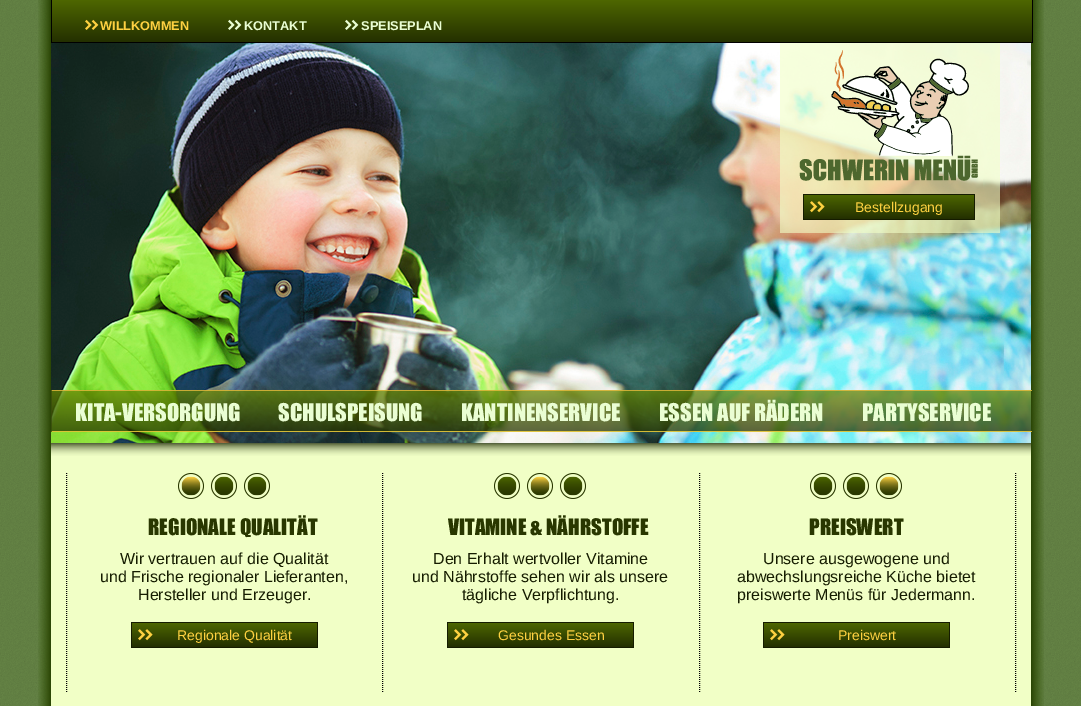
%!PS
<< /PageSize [1081 706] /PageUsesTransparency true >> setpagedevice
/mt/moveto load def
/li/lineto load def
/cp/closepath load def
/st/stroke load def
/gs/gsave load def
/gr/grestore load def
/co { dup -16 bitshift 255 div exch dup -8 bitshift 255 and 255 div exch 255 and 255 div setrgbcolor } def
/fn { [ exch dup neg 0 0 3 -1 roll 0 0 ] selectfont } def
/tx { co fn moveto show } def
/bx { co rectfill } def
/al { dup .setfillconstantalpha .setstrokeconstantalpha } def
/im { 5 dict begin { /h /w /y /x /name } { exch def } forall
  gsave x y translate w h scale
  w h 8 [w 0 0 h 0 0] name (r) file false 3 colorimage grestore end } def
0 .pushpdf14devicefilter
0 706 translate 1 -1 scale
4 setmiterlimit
0 0 1081 706 16#FFFFFF bx
(media/1.raw) 0 0 1081 706 im
(media/2.raw) 1031 0 13 706 im
(media/3.raw) 38 0 13 706 im
51 443 980 263 16#F1FFC6 bx
(media/4.raw) 51 443 980 13 im
(media/5.raw) 52 0 980 42 im
1032 0 1 43 16#000000 bx
51 42 982 1 16#000000 bx
51 0 1 43 16#000000 bx
(media/6.raw) 85 19 14 11 im
(media/7.raw) 228 19 14 11 im
(media/7.raw) 345 19 14 11 im
(media/8.raw) 51 43 980 400 im
0.75 al
51 390 981 1 16#FED141 bx
51 431 981 1 16#FED141 bx
51 390 1 42 16#37490C bx
1 al
16#000000 co
[1 1] 0 setdash
382.5 473 mt 382.5 693 li st
66.5 473 mt 66.5 693 li st
(media/9.raw) 178 473 92 26 im
131 622 187 26 16#151C00 bx
gs 132 623 mt 153 623 li 153 647 li 132 647 li cp clip newpath
<< /ShadingType 2 /ColorSpace /DeviceRGB /Coords [132 623 132 647] /Extend [true true] /Function << /FunctionType 2 /Domain [0 1] /C0 [.302 .4 0] /C1 [.137 .184 0] /N 1 >> >> shfill gr
(media/10.raw) 138 629 15 12 im
gs 153 623 mt 317 623 li 317 647 li 153 647 li cp clip newpath
<< /ShadingType 2 /ColorSpace /DeviceRGB /Coords [153 623 153 647] /Extend [true true] /Function << /FunctionType 2 /Domain [0 1] /C0 [.302 .4 0] /C1 [.137 .184 0] /N 1 >> >> shfill gr
(media/11.raw) 494 473 92 26 im
447 622 187 26 16#151C00 bx
gs 448 623 mt 469 623 li 469 647 li 448 647 li cp clip newpath
<< /ShadingType 2 /ColorSpace /DeviceRGB /Coords [448 623 448 647] /Extend [true true] /Function << /FunctionType 2 /Domain [0 1] /C0 [.302 .4 0] /C1 [.137 .184 0] /N 1 >> >> shfill gr
(media/10.raw) 454 629 15 12 im
gs 469 623 mt 633 623 li 633 647 li 469 647 li cp clip newpath
<< /ShadingType 2 /ColorSpace /DeviceRGB /Coords [469 623 469 647] /Extend [true true] /Function << /FunctionType 2 /Domain [0 1] /C0 [.302 .4 0] /C1 [.137 .184 0] /N 1 >> >> shfill gr
16#000000 co
1015.5 473 mt 1015.5 693 li st
699.5 473 mt 699.5 693 li st
(media/12.raw) 810 473 92 26 im
763 622 187 26 16#151C00 bx
gs 764 623 mt 785 623 li 785 647 li 764 647 li cp clip newpath
<< /ShadingType 2 /ColorSpace /DeviceRGB /Coords [764 623 764 647] /Extend [true true] /Function << /FunctionType 2 /Domain [0 1] /C0 [.302 .4 0] /C1 [.137 .184 0] /N 1 >> >> shfill gr
(media/10.raw) 770 629 15 12 im
gs 785 623 mt 949 623 li 949 647 li 785 647 li cp clip newpath
<< /ShadingType 2 /ColorSpace /DeviceRGB /Coords [785 623 785 647] /Extend [true true] /Function << /FunctionType 2 /Domain [0 1] /C0 [.302 .4 0] /C1 [.137 .184 0] /N 1 >> >> shfill gr
0.6 al
780 43 220 190 16#F1FFC6 bx
1 al
(media/13.raw) 799 50 179 131 im
803 194 172 26 16#151C00 bx
gs 804 195 mt 825 195 li 825 219 li 804 219 li cp clip newpath
<< /ShadingType 2 /ColorSpace /DeviceRGB /Coords [804 195 804 219] /Extend [true true] /Function << /FunctionType 2 /Domain [0 1] /C0 [.302 .4 0] /C1 [.137 .184 0] /N 1 >> >> shfill gr
(media/10.raw) 810 201 15 12 im
gs 825 195 mt 974 195 li 974 219 li 825 219 li cp clip newpath
<< /ShadingType 2 /ColorSpace /DeviceRGB /Coords [825 195 825 219] /Extend [true true] /Function << /FunctionType 2 /Domain [0 1] /C0 [.302 .4 0] /C1 [.137 .184 0] /N 1 >> >> shfill gr
(WILLKOMMEN) 100 30 /LiberationSans-Bold 12.75 16#FED141 tx
(KONTAKT) 244 30 /LiberationSans-Bold 12.75 16#EAFED3 tx
(SPEISEPLAN) 361 30 /LiberationSans-Bold 12.75 16#EAFED3 tx
(KITA-VERSORGUNG) 75 421 /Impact-Regular 22.5 16#EAFED3 tx
(SCHULSPEISUNG) 278 421 /Impact-Regular 22.5 16#EAFED3 tx
(KANTINENSERVICE) 461 421 /Impact-Regular 22.5 16#EAFED3 tx
(ESSEN AUF RÄDERN) 659 421 /Impact-Regular 22.5 16#EAFED3 tx
(PARTYSERVICE) 862 421 /Impact-Regular 22.5 16#EAFED3 tx
(REGIONALE QUALITÄT) 148 535 /Impact-Regular 21 16#293700 tx
(Wir vertrauen auf die Qualität) 120 564 /LiberationSans-Regular 16 16#151C00 tx
(und Frische regionaler Lieferanten,) 100 582 /LiberationSans-Regular 16 16#151C00 tx
(Hersteller und Erzeuger.) 138 600 /LiberationSans-Regular 16 16#151C00 tx
(Regionale Qualität) 177 640 /LiberationSans-Regular 14 16#FED141 tx
(VITAMINE & NÄHRSTOFFE) 448 535 /Impact-Regular 21 16#293700 tx
(Den Erhalt wertvoller Vitamine) 433 564 /LiberationSans-Regular 16 16#151C00 tx
(und Nährstoffe sehen wir als unsere) 412 582 /LiberationSans-Regular 16 16#151C00 tx
(tägliche Verpflichtung.) 462 600 /LiberationSans-Regular 16 16#151C00 tx
(Gesundes Essen) 498 640 /LiberationSans-Regular 14 16#FED141 tx
(PREISWERT) 809 535 /Impact-Regular 21 16#293700 tx
(Unsere ausgewogene und) 763 564 /LiberationSans-Regular 16 16#151C00 tx
(abwechslungsreiche Küche bietet) 737 582 /LiberationSans-Regular 16 16#151C00 tx
(preiswerte Menüs für Jedermann.) 737 600 /LiberationSans-Regular 16 16#151C00 tx
(Preiswert) 838 640 /LiberationSans-Regular 14 16#FED141 tx
(Bestellzugang) 855 212 /LiberationSans-Regular 14 16#FED141 tx
.poppdf14devicefilter showpage
